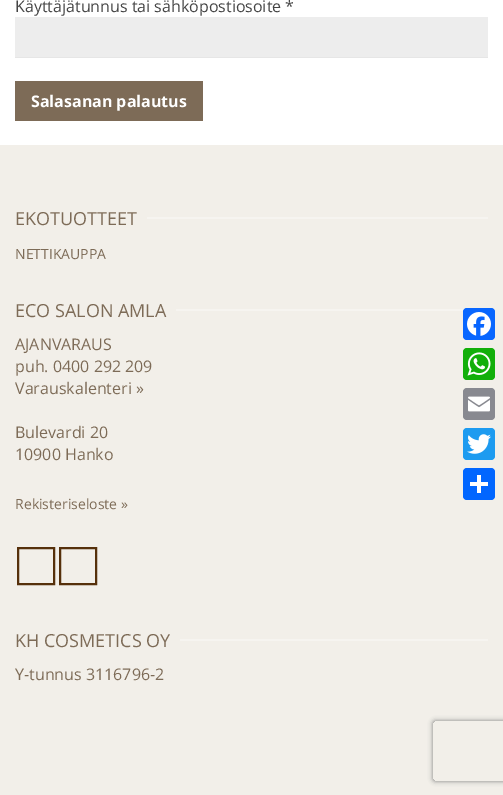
%!PS
<< /PageSize [503 795] /PageUsesTransparency true >> setpagedevice
/mt/moveto load def
/li/lineto load def
/ct/curveto load def
/cp/closepath load def
/fl/fill load def
/gs/gsave load def
/gr/grestore load def
/lw/setlinewidth load def
/co { dup -16 bitshift 255 div exch dup -8 bitshift 255 and 255 div exch 255 and 255 div setrgbcolor } def
/fn { [ exch dup neg 0 0 3 -1 roll 0 0 ] selectfont } def
/tx { co fn moveto show } def
/bx { co rectfill } def
/al { dup .setfillconstantalpha .setstrokeconstantalpha } def
/rr { 5 dict begin { /r /h /w /y /x } { exch def } forall
  x r add y moveto x w add y 2 copy h add r arct x w add y h add x 1 index r arct
  x y h add x y r arct x y 2 copy exch w add exch r arct closepath end } def
/sh { 12 dict begin { /a /b /q /h /w /y /x } { exch def } forall gsave /was 0 def
  9 -2 -9 { dup b mul 4 div /e exch def 1 sub .425 mul 2.718 exch exp 1 add a .99 .min exch div /now exch def
    1 1 now sub 1 was sub div sub al /was now def
    w h .min e 2 mul add 0 gt { x e sub y e sub w e 2 mul add h e 2 mul add
      q e add b .6 mul add w h .min 2 div e add .min 0 .max rr fill } if } for grestore end } def
/im { 5 dict begin { /h /w /y /x /name } { exch def } forall
  gsave x y translate w h scale
  w h 8 [w 0 0 h 0 0] name (r) file false 3 colorimage grestore end } def
0 .pushpdf14devicefilter
0 795 translate 1 -1 scale
4 setmiterlimit
0 0 503 795 16#FFFFFF bx
15 57 473 1 16#E6E6E6 bx
15 17 473 40 16#EDEDED bx
15 81 188 40 16#7D6B57 bx
0 145 503 650 16#F2EFE9 bx
147 217 341 2 16#F6F4F0 bx
176 309 289 2 16#F6F4F0 bx
16#56300B co
2 lw
18 548 36 36 rectstroke
60 548 36 36 rectstroke
180 639 308 2 16#F6F4F0 bx
16#0866FF co
463 308 32 32 4 rr fl
(media/1.raw) 467 312 24 24 im
16#12AF0A co
463 348 32 32 4 rr fl
(media/2.raw) 467 352 24 24 im
16#888990 co
463 388 32 32 4 rr fl
(media/3.raw) 468 396 22 16 im
16#1D9BF0 co
463 428 32 32 4 rr fl
(media/4.raw) 467 434 24 20 im
16#0166FF co
463 468 32 32 4 rr fl
477 475 4 18 16#FFFFFF bx
470 482 18 4 16#FFFFFF bx
gs
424 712 mt 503 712 li 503 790 li 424 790 li cp 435 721 mt 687 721 li 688 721 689 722 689 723 ct 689 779 li 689 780 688 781 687 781 ct 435 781 li 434 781 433 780 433 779 ct 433 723 li 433 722 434 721 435 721 ct cp eoclip newpath
16#808080 co
433 721 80 60 2 2.5 1 sh
gr
(Käyttäjätunnus tai sähköpostiosoite *) 15 12 /OpenSans-Regular 16 16#444444 tx
(Salasanan palautus) 31 107 /OpenSans-Bold 16 16#FFFFFF tx
(EKOTUOTTEET) 15 225 /OpenSans-Regular 18 16#7D6B57 tx
(NETTIKAUPPA) 15 259 /OpenSans-Regular 14 16#7D6B57 tx
(ECO SALON AMLA) 15 317 /OpenSans-Regular 18 16#7D6B57 tx
(AJANVARAUS) 15 350 /OpenSans-Regular 16 16#7D6B57 tx
(puh. 0400 292 209) 15 372 /OpenSans-Regular 16 16#7D6B57 tx
(Varauskalenteri ») 15 394 /OpenSans-Regular 16 16#7D6B57 tx
(Bulevardi 20) 15 438 /OpenSans-Regular 16 16#7D6B57 tx
(10900 Hanko) 15 460 /OpenSans-Regular 16 16#7D6B57 tx
(Rekisteriseloste ») 15 509 /OpenSans-Regular 14 16#7D6B57 tx
(KH COSMETICS OY) 15 647 /OpenSans-Regular 18 16#7D6B57 tx
(Y-tunnus 3116796-2) 15 680 /OpenSans-Regular 16 16#7D6B57 tx
.poppdf14devicefilter showpage
